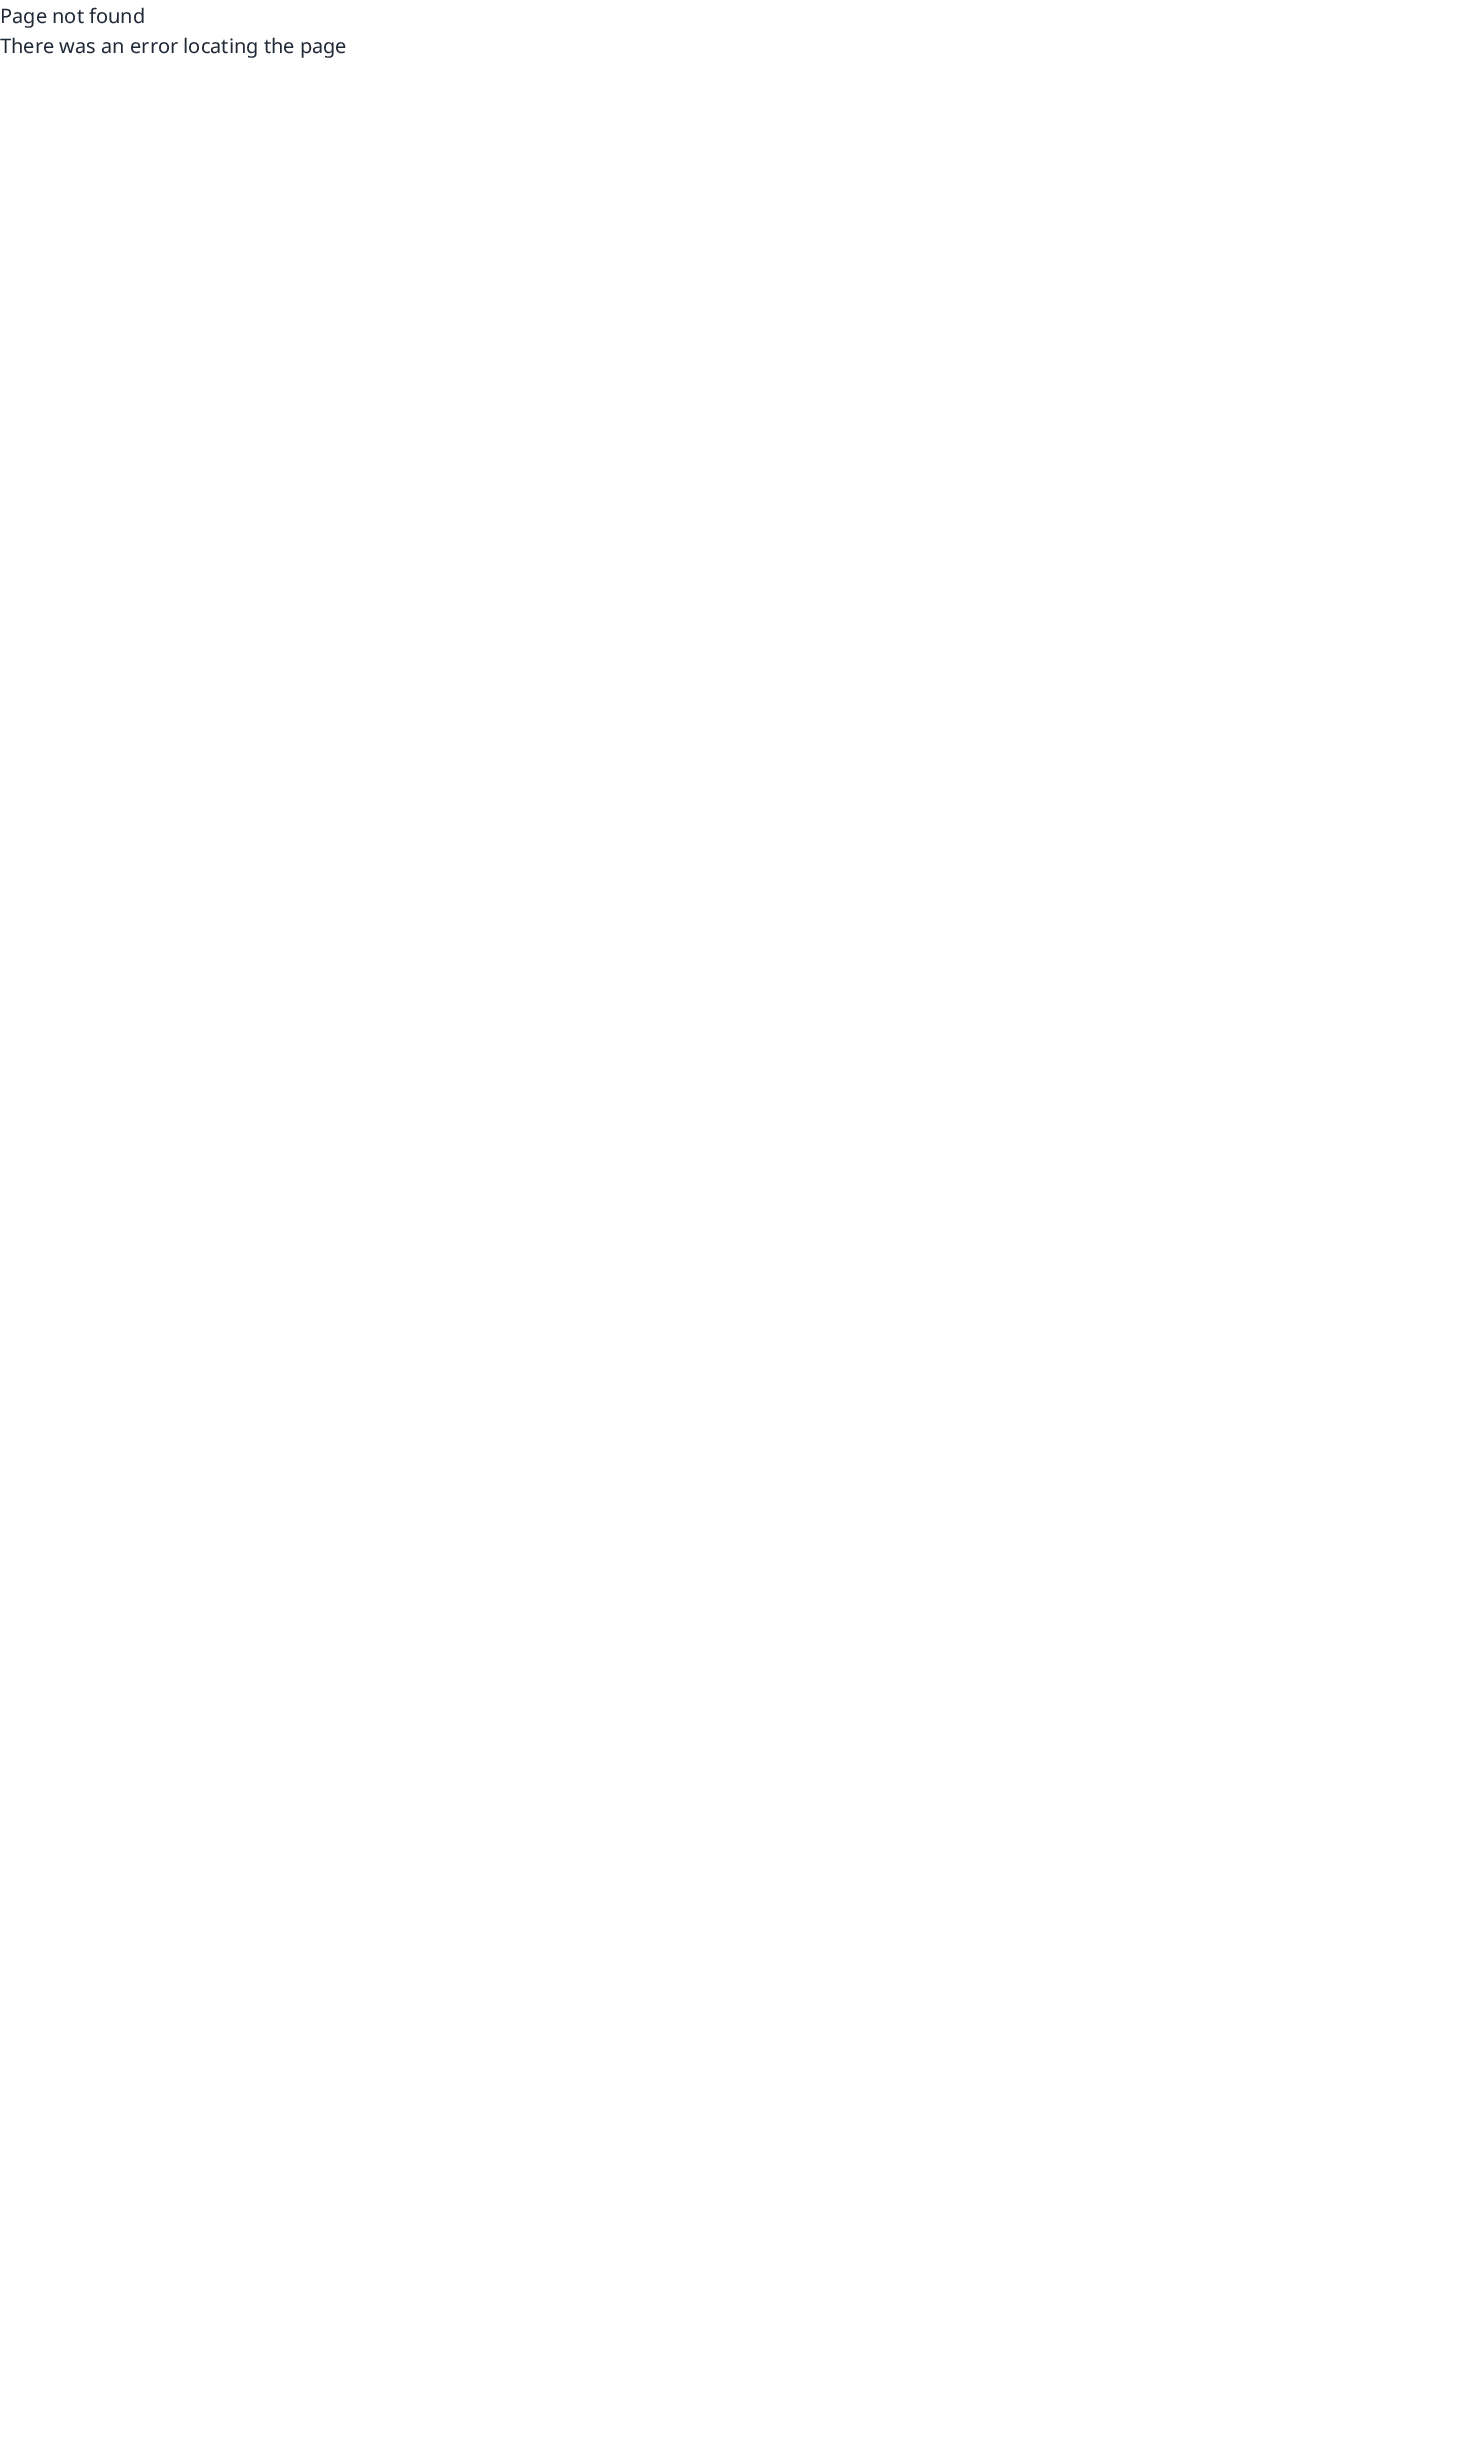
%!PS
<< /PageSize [1462 2437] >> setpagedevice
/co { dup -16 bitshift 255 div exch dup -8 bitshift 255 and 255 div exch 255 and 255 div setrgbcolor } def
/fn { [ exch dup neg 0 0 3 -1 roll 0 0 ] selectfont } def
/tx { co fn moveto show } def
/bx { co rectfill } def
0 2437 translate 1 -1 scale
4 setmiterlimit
0 0 1462 2437 16#FFFFFF bx
(Page not found) 0 23 /NotoSans-Regular 20 16#1F2937 tx
(There was an error locating the page) 0 53 /NotoSans-Regular 20 16#1F2937 tx
showpage
